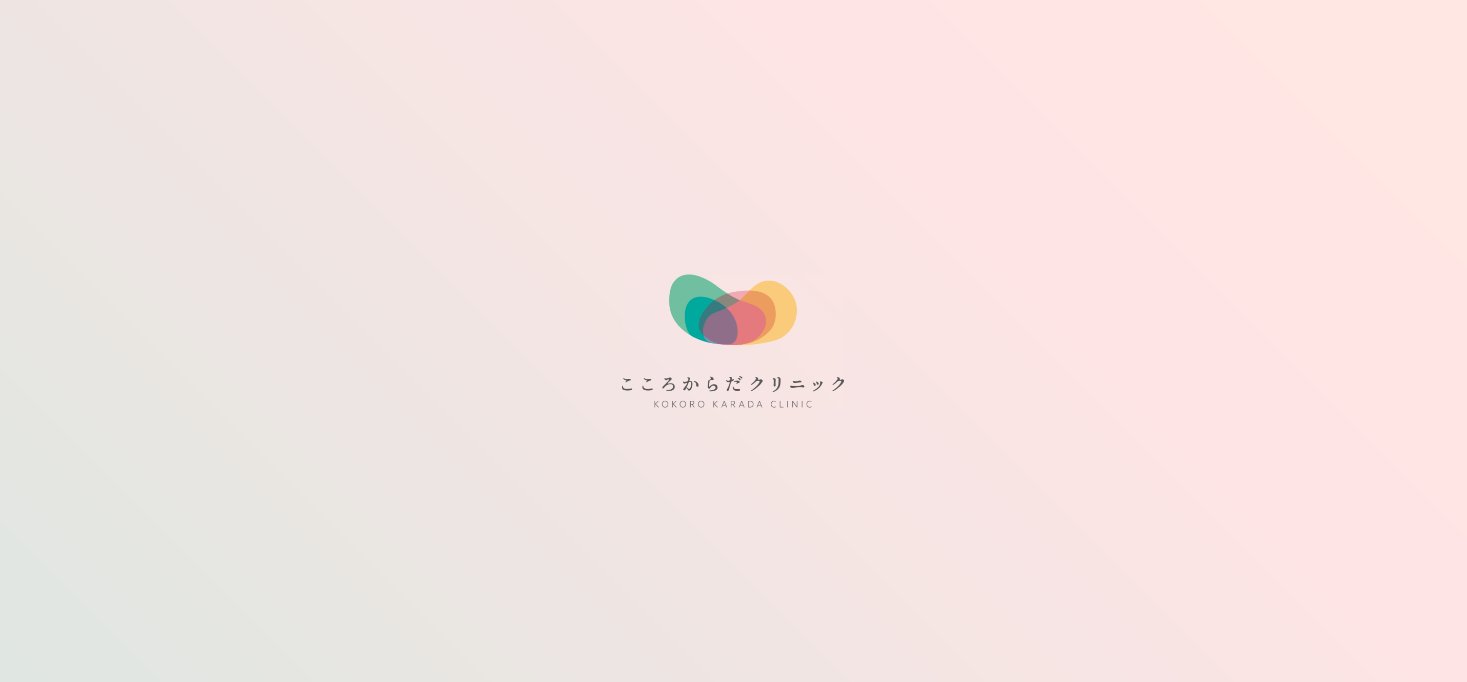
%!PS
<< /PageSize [1467 682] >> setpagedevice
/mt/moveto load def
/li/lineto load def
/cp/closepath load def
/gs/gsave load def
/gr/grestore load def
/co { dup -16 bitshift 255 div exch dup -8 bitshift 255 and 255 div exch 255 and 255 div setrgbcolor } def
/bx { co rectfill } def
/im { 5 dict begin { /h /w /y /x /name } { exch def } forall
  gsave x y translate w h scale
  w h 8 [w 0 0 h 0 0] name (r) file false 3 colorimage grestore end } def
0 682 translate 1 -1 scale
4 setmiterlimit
0 0 1467 682 16#FFFFFF bx
gs 0 0 mt 1467 0 li 1467 682 li 0 682 li cp clip newpath
<< /ShadingType 2 /ColorSpace /DeviceRGB /Coords [393 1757 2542 -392] /Extend [true true] /Function << /FunctionType 3 /Domain [0 1] /Functions [<< /FunctionType 2 /Domain [0 1] /C0 [.82 .91 .878] /C1 [1 .894 .898] /N 1 >> << /FunctionType 2 /Domain [0 1] /C0 [1 .894 .898] /C1 [1 .957 .886] /N 1 >>] /Bounds [.5] /Encode [0 1 0 1] >> >> shfill gr
(media/1.raw) 622 274 222 134 im
showpage
